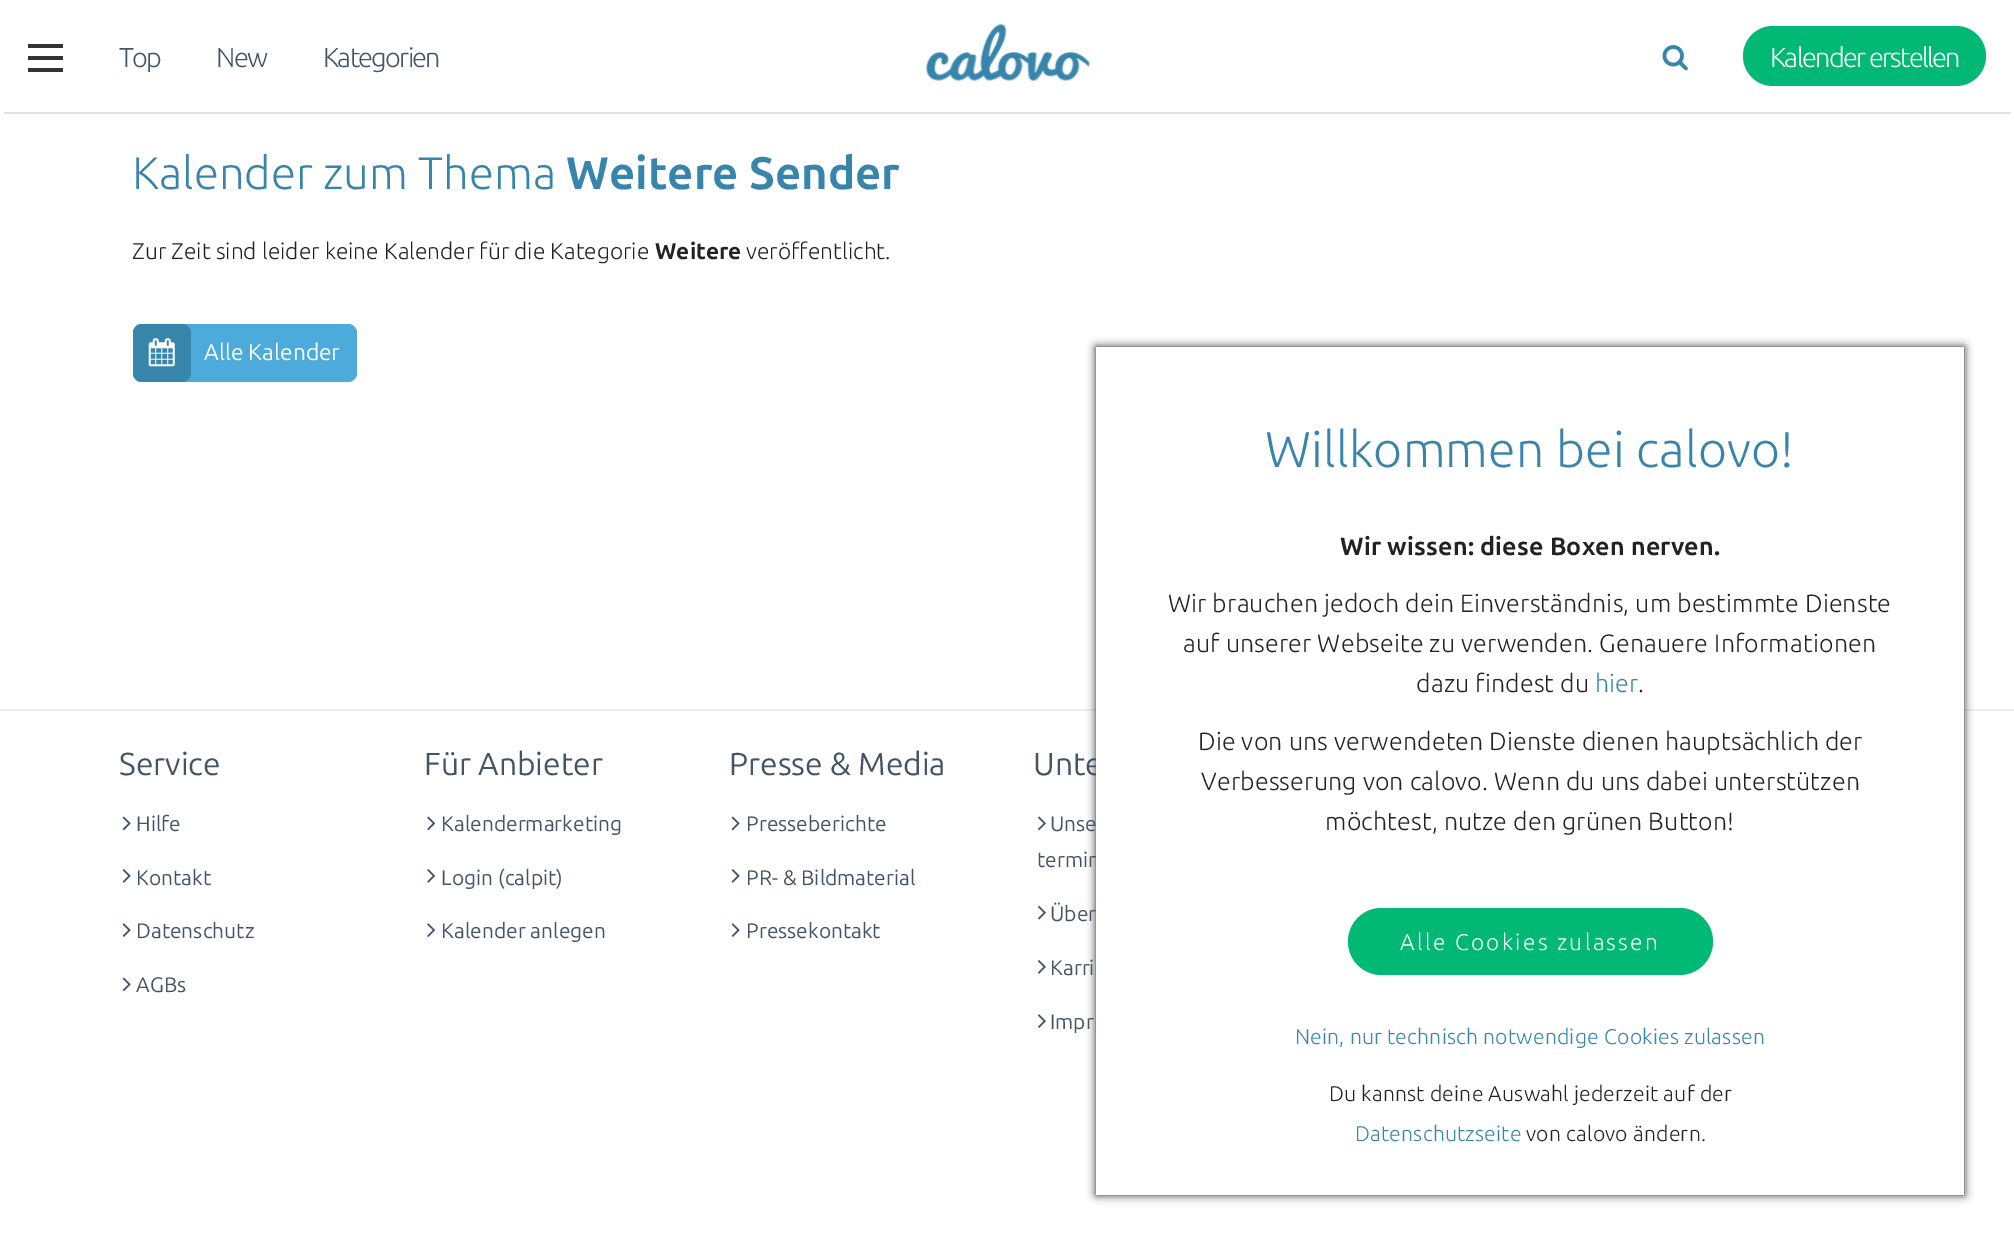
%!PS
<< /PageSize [2014 1246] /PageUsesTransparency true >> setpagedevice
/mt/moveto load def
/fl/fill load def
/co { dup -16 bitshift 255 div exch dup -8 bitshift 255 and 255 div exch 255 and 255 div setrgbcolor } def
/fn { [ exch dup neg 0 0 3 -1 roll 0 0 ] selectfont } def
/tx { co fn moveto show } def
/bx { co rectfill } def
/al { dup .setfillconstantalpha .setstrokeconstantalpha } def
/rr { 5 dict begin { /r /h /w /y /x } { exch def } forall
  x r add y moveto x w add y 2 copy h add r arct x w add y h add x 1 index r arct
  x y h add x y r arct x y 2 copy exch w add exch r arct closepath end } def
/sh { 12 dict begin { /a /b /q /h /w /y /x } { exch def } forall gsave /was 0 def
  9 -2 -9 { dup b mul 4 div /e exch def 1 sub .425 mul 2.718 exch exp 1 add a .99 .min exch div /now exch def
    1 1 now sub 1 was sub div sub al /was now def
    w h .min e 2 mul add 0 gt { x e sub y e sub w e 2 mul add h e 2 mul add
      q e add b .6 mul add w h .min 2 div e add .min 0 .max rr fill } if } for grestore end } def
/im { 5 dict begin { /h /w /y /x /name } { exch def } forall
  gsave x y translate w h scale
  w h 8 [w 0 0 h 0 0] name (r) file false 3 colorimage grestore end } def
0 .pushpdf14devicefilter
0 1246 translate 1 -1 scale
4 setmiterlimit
0 0 2014 1246 16#FFFFFF bx
4 112 2007 2 16#E1E1E1 bx
28 44 35 4 16#333333 bx
28 56 35 4 16#333333 bx
28 68 35 4 16#333333 bx
(media/1.raw) 925 24 165 57 im
(media/2.raw) 1662 45 26 26 im
16#02B875 co
1743 26 243 60 30 rr fl
16#4DABDB co
133 324 224 58 9 rr fl
16#3885AC co
133 324 58 58 9 rr fl
(media/3.raw) 148 338 27 29 im
0 709 2014 2 16#EEEEEE bx
16#222222 co
1096 347 868 848 0 4.5 1 sh
(media/4.raw) 122 816 9 15 im
(media/5.raw) 122 869 9 14 im
(media/6.raw) 122 923 9 14 im
(media/4.raw) 122 977 9 15 im
(media/7.raw) 427 816 9 15 im
(media/8.raw) 427 869 9 14 im
(media/9.raw) 427 923 9 14 im
(media/4.raw) 731 816 9 15 im
(media/5.raw) 731 869 9 14 im
(media/6.raw) 731 923 9 14 im
(media/10.raw) 1038 816 8 15 im
(media/11.raw) 1038 905 8 15 im
(media/12.raw) 1038 960 8 14 im
(media/13.raw) 1038 1014 8 14 im
/Ubuntu-Light 27.25 fn
16#445464 co
119 67 mt -1.75 0 (Top) ashow
216 67 mt -1.75 0 (New) ashow
323 67 mt -1.75 0 (Kategorien) ashow
16#FFFFFF co
1770 67 mt -1.75 0 (Kalender erstellen) ashow
(Kalender zum Thema) 132 189 /Ubuntu-Light 45.5 16#3885AC tx
(Weitere Sender) 566 189 /Ubuntu-Bold 45.5 16#3885AC tx
(Zur Zeit sind leider keine Kalender für die Kategorie) 132 259 /Ubuntu-Light 22.75 16#222222 tx
(Weitere) 655 259 /Ubuntu-Bold 22.75 16#222222 tx
(veröffentlicht.) 746 259 /Ubuntu-Light 22.75 16#222222 tx
(Alle Kalender) 204 360 /Ubuntu-Regular 22.75 16#FFFFFF tx
(Service) 119 775 /Ubuntu-Regular 31.75 16#445464 tx
(Hilfe) 136 831 /Ubuntu-Regular 21 16#445464 tx
(Kontakt) 136 885 /Ubuntu-Regular 21 16#445464 tx
(Datenschutz) 136 938 /Ubuntu-Regular 21 16#445464 tx
(AGBs) 136 992 /Ubuntu-Regular 21 16#445464 tx
(Für Anbieter) 424 775 /Ubuntu-Regular 31.75 16#445464 tx
(Kalendermarketing) 441 831 /Ubuntu-Regular 21 16#445464 tx
(Login \(calpit\)) 441 885 /Ubuntu-Regular 21 16#445464 tx
(Kalender anlegen) 441 938 /Ubuntu-Regular 21 16#445464 tx
(Presse & Media) 729 775 /Ubuntu-Regular 31.75 16#445464 tx
(Presseberichte) 746 831 /Ubuntu-Regular 21 16#445464 tx
(PR- & Bildmaterial) 746 885 /Ubuntu-Regular 21 16#445464 tx
(Pressekontakt) 746 938 /Ubuntu-Regular 21 16#445464 tx
(Unte) 1033 775 /Ubuntu-Regular 31.75 16#445464 tx
(Unse) 1050 831 /Ubuntu-Regular 21 16#445464 tx
(termin) 1037 867 /Ubuntu-Regular 21 16#445464 tx
(Über) 1050 921 /Ubuntu-Regular 21 16#445464 tx
1096 347 868 848 16#FFFFFF bx
/Ubuntu-Light 21.25 fn
16#222222 co
1526 1141 mt .18 0 (von calovo ändern.) ashow
16#3885AC co
1355 1141 mt .18 0 (Datenschutzseite) ashow
16#222222 co
1329 1101 mt .18 0 (Du kannst deine Auswahl jederzeit auf der) ashow
16#3885AC co
1604 1044 mt .18 0 (Cookies zulassen) ashow
1295 1044 mt .18 0 (Nein, nur technisch notwendige) ashow
16#02B875 co
1348 908 365 67 33.5 rr fl
/Ubuntu-Light 22.75 fn
16#FFFFFF co
1400 950 mt 2.25 0 (Alle Cookies zulassen) ashow
/Ubuntu-Light 25 fn
16#222222 co
1325 830 mt .18 0 (möchtest, nutze den grünen Button!) ashow
1201 790 mt .18 0 (Verbesserung von calovo. Wenn du uns dabei unterstützen) ashow
1198 750 mt .18 0 (Die von uns verwendeten Dienste dienen hauptsächlich der) ashow
1638 692 mt .18 0 (.) ashow
16#3885AC co
1595 692 mt .18 0 (hier) ashow
16#222222 co
1416 692 mt .18 0 (dazu findest du) ashow
1183 652 mt .18 0 (auf unserer Webseite zu verwenden. Genauere Informationen) ashow
1168 612 mt .18 0 (Wir brauchen jedoch dein Einverständnis, um bestimmte Dienste) ashow
/Ubuntu-Bold 25 fn
1340 555 mt .18 0 (Wir wissen: diese Boxen nerven.) ashow
/Ubuntu-Light 50 fn
16#3885AC co
1265 467 mt .18 0 (Willkommen bei calovo!) ashow
(Karri) 1050 975 /Ubuntu-Regular 21 16#445464 tx
(Impr) 1050 1029 /Ubuntu-Regular 21 16#445464 tx
.poppdf14devicefilter showpage
